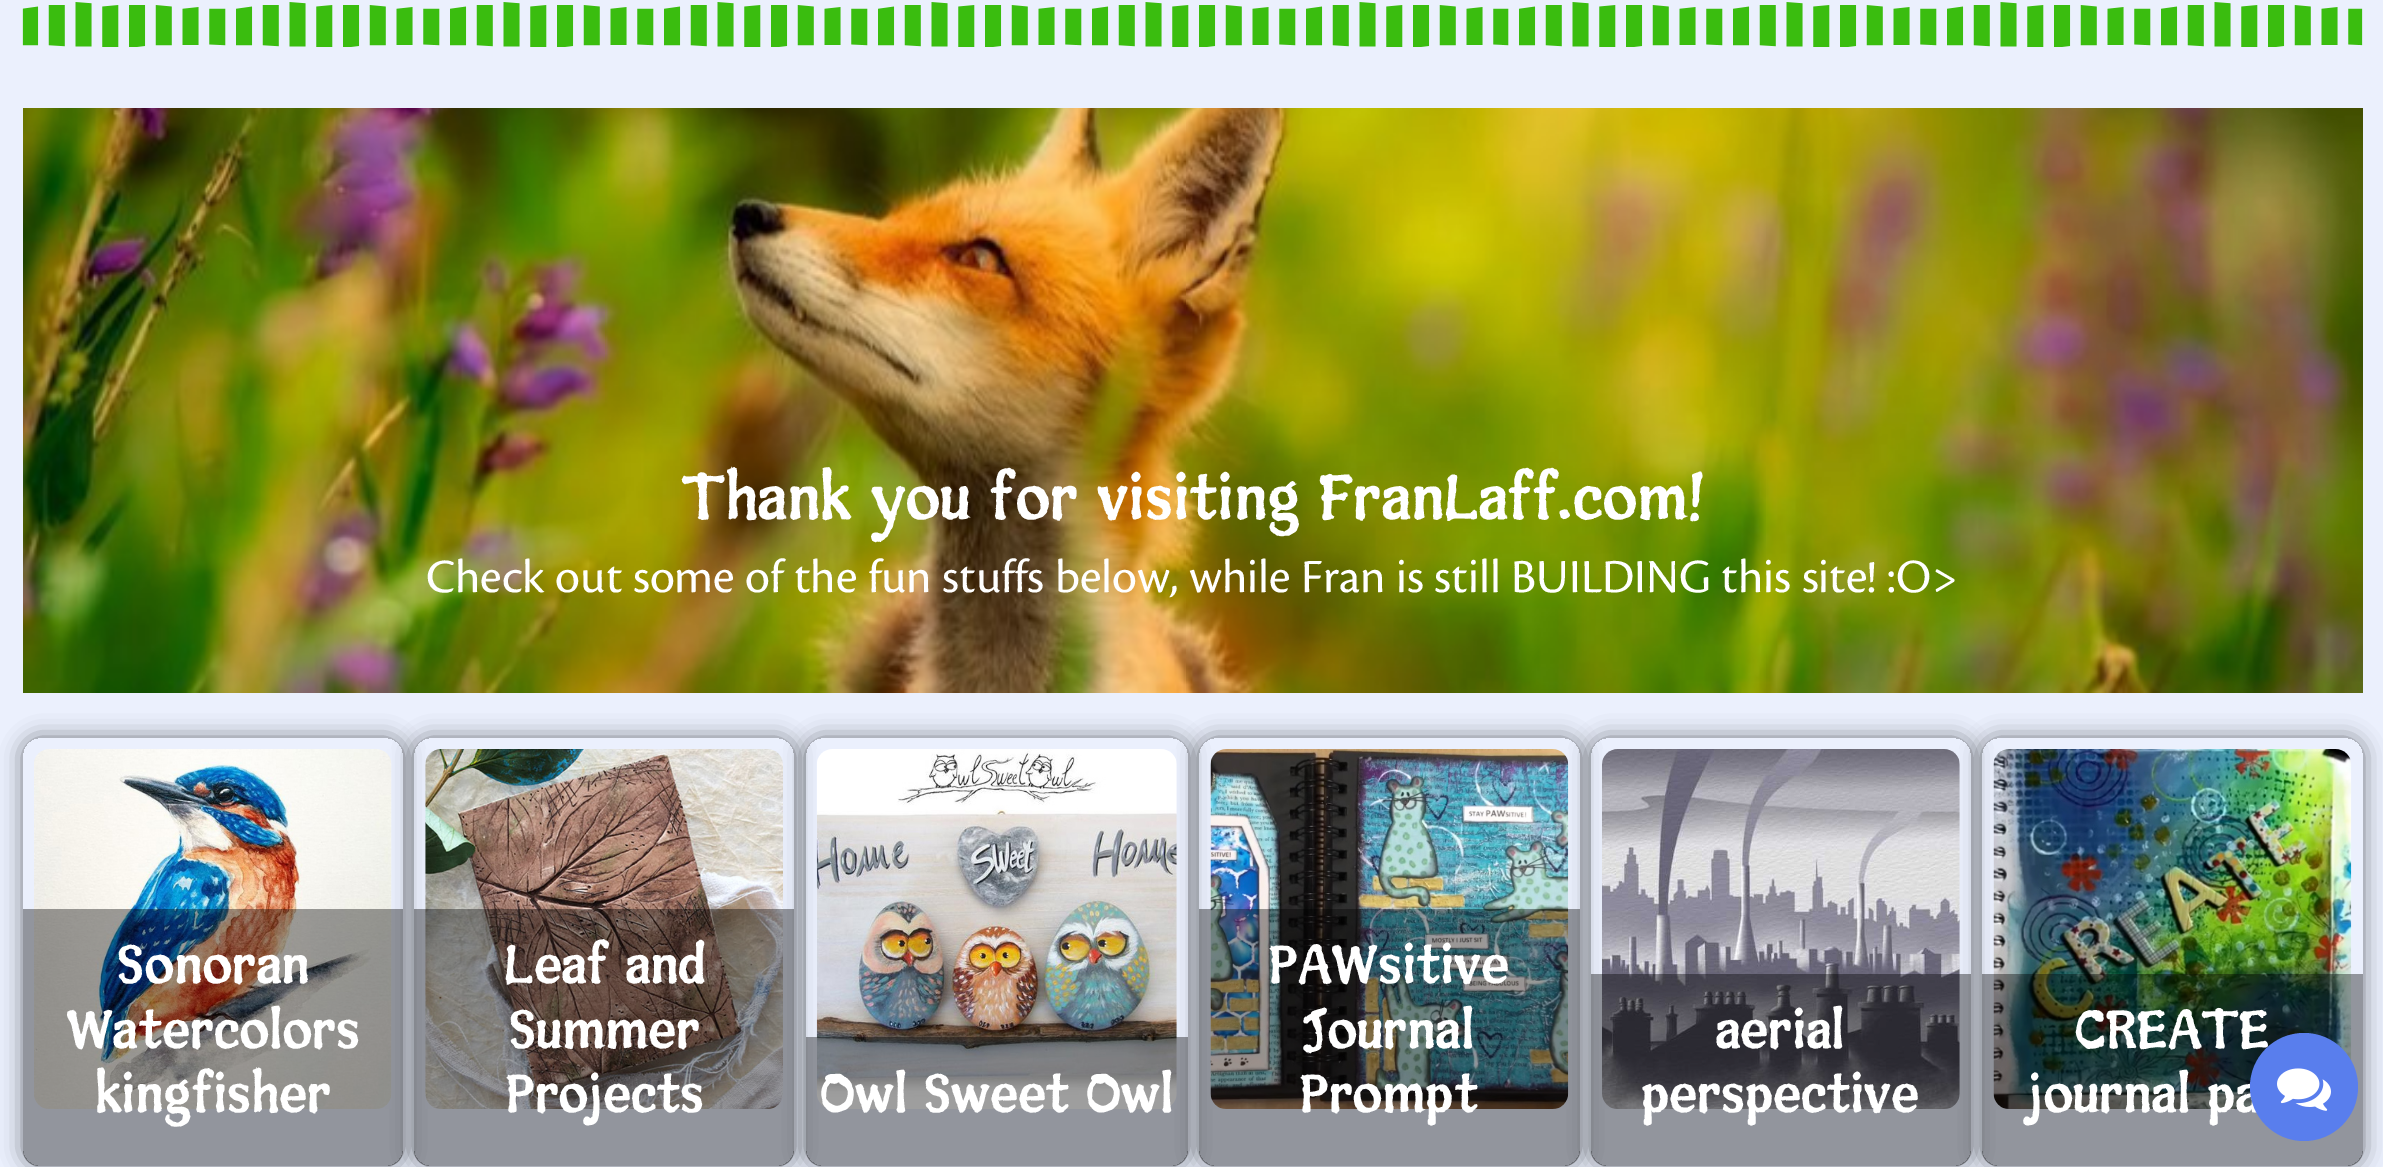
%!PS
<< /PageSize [2383 1167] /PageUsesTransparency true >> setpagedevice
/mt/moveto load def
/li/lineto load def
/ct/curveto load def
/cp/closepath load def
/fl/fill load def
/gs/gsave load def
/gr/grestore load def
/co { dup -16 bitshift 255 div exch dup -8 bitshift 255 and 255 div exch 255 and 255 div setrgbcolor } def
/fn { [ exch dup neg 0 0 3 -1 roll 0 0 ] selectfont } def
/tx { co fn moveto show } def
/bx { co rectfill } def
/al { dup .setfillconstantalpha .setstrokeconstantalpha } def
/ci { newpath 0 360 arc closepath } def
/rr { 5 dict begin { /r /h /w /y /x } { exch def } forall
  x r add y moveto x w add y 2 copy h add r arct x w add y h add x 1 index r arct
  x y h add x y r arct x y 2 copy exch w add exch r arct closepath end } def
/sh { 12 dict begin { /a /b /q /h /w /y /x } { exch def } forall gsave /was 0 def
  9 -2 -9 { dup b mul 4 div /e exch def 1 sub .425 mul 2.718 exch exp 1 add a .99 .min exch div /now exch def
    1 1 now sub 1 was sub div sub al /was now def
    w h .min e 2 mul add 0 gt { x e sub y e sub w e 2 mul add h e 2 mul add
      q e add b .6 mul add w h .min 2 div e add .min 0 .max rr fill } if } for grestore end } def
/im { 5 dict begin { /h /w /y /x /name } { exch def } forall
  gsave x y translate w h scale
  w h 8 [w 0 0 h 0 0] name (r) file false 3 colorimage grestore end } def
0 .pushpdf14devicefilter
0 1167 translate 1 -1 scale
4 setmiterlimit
0 0 2383 1167 16#EBF0FD bx
(media/1.raw) 22 2 2341 45 im
(media/2.raw) 23 108 2340 585 im
gs
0 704 mt 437 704 li 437 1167 li 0 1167 li cp 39 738 mt 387 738 li 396 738 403 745 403 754 ct 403 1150 li 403 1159 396 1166 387 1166 ct 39 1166 li 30 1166 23 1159 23 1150 ct 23 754 li 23 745 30 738 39 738 ct cp eoclip newpath
16#000000 co
23 738 380 428 16 11 .5 sh
gr
gs
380 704 mt 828 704 li 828 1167 li 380 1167 li cp 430 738 mt 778 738 li 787 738 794 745 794 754 ct 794 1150 li 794 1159 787 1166 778 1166 ct 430 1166 li 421 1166 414 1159 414 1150 ct 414 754 li 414 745 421 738 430 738 ct cp eoclip newpath
16#000000 co
414 738 380 428 16 11 .5 sh
gr
(media/3.raw) 34 749 358 360 im
0.38 al
16#000000 co
23 909 mt 403 909 li 403 1150 li 403 1159 396 1166 387 1166 ct 39 1166 li 30 1166 23 1159 23 1150 ct cp fl
gs
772 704 mt 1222 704 li 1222 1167 li 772 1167 li cp 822 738 mt 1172 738 li 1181 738 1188 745 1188 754 ct 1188 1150 li 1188 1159 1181 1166 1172 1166 ct 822 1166 li 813 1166 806 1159 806 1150 ct 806 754 li 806 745 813 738 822 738 ct cp eoclip newpath
1 al
806 738 382 428 16 11 .5 sh
gr
1 al
(media/4.raw) 425 749 358 360 im
0.38 al
414 909 mt 794 909 li 794 1150 li 794 1159 787 1166 778 1166 ct 430 1166 li 421 1166 414 1159 414 1150 ct cp fl
gs
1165 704 mt 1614 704 li 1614 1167 li 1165 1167 li cp 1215 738 mt 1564 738 li 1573 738 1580 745 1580 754 ct 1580 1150 li 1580 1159 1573 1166 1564 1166 ct 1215 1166 li 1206 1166 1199 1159 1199 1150 ct 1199 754 li 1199 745 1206 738 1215 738 ct cp eoclip newpath
1 al
1199 738 381 428 16 11 .5 sh
gr
1 al
(media/5.raw) 816 749 361 360 im
0.38 al
806 1037 mt 1188 1037 li 1188 1150 li 1188 1159 1181 1166 1172 1166 ct 822 1166 li 813 1166 806 1159 806 1150 ct cp fl
gs
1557 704 mt 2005 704 li 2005 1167 li 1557 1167 li cp 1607 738 mt 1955 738 li 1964 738 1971 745 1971 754 ct 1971 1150 li 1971 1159 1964 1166 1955 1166 ct 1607 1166 li 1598 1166 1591 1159 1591 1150 ct 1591 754 li 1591 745 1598 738 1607 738 ct cp eoclip newpath
1 al
1591 738 380 428 16 11 .5 sh
gr
1 al
(media/6.raw) 1210 749 359 360 im
0.38 al
1199 909 mt 1580 909 li 1580 1150 li 1580 1159 1573 1166 1564 1166 ct 1215 1166 li 1206 1166 1199 1159 1199 1150 ct cp fl
gs
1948 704 mt 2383 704 li 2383 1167 li 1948 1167 li cp 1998 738 mt 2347 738 li 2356 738 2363 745 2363 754 ct 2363 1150 li 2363 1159 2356 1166 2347 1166 ct 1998 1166 li 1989 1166 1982 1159 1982 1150 ct 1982 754 li 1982 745 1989 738 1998 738 ct cp eoclip newpath
1 al
1982 738 381 428 16 11 .5 sh
gr
1 al
(media/7.raw) 1602 749 358 360 im
0.38 al
1591 974 mt 1971 974 li 1971 1150 li 1971 1159 1964 1166 1955 1166 ct 1607 1166 li 1598 1166 1591 1159 1591 1150 ct cp fl
1 al
(media/8.raw) 1993 749 359 360 im
0.38 al
1982 974 mt 2363 974 li 2363 1150 li 2363 1159 2356 1166 2347 1166 ct 1998 1166 li 1989 1166 1982 1159 1982 1150 ct cp fl
1 al
(Thank you for visiting FranLaff.com!) 681 519 /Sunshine-Bold 63 16#FFFFFF tx
(Check out some of the fun stuffs below, while Fran is still BUILDING this site! :O>) 426 592 /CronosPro-Regular 49.5 16#FFFFFF tx
(Sonoran) 117 983 /Sunshine-Bold 54 16#FFFFFF tx
(Watercolors) 66 1048 /Sunshine-Bold 54 16#FFFFFF tx
(kingfisher) 95 1112 /Sunshine-Bold 54 16#FFFFFF tx
(Leaf and) 504 983 /Sunshine-Bold 54 16#FFFFFF tx
(Summer) 509 1048 /Sunshine-Bold 54 16#FFFFFF tx
(Projects) 505 1112 /Sunshine-Bold 54 16#FFFFFF tx
(Owl Sweet Owl) 820 1112 /Sunshine-Bold 54 16#FFFFFF tx
(PAWsitive) 1268 983 /Sunshine-Bold 54 16#FFFFFF tx
(Journal) 1302 1048 /Sunshine-Bold 54 16#FFFFFF tx
(Prompt) 1299 1112 /Sunshine-Bold 54 16#FFFFFF tx
(aerial) 1715 1048 /Sunshine-Bold 54 16#FFFFFF tx
(perspective) 1641 1112 /Sunshine-Bold 54 16#FFFFFF tx
(CREATE) 2075 1048 /Sunshine-Bold 54 16#FFFFFF tx
(journal pa) 2028 1112 /Sunshine-Bold 54 16#FFFFFF tx
16#597EED co
2304 1087 54 ci fl
(media/9.raw) 2277 1068 54 43 im
.poppdf14devicefilter showpage
